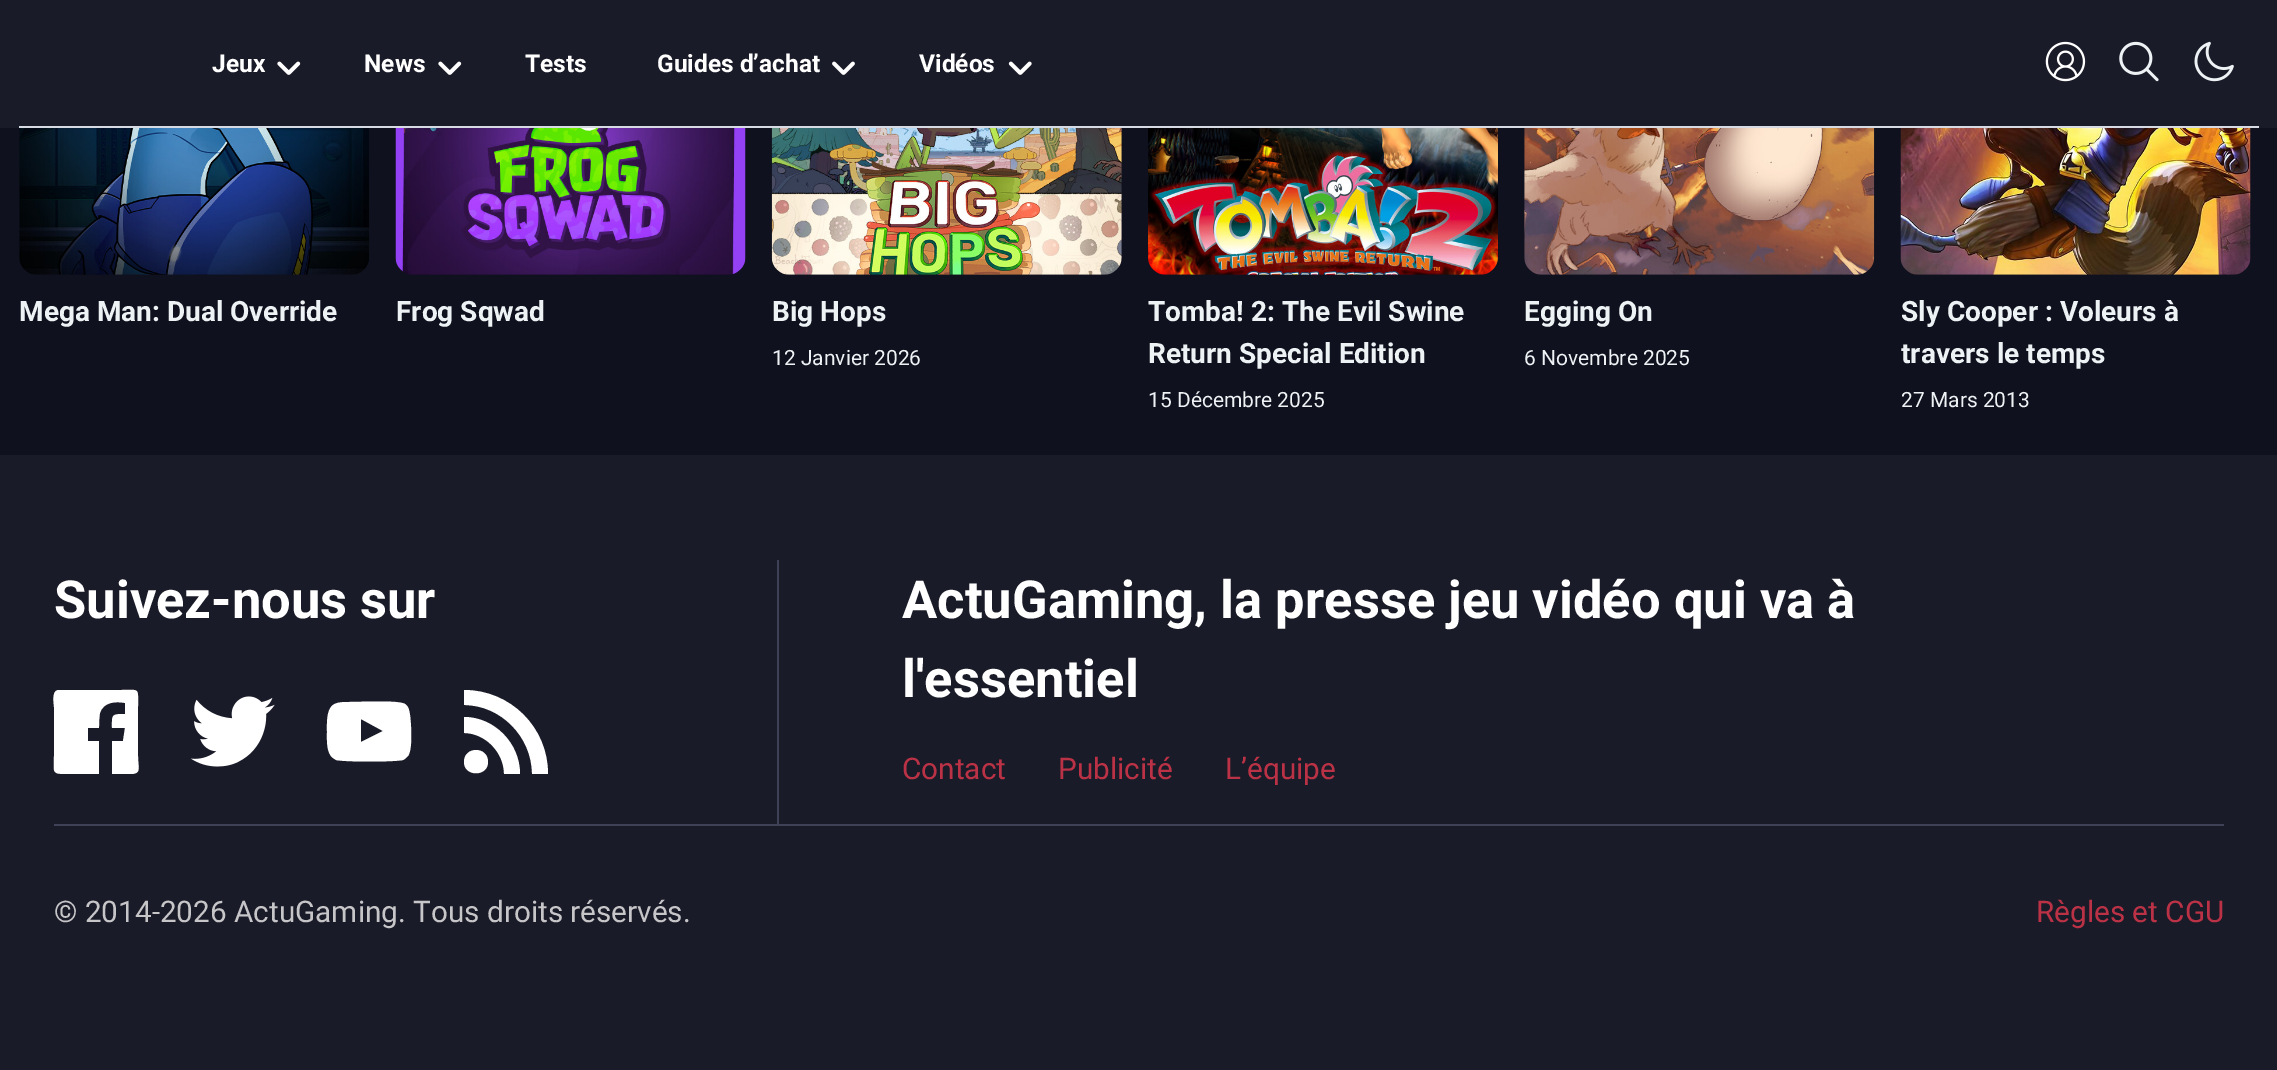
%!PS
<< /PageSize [2277 1070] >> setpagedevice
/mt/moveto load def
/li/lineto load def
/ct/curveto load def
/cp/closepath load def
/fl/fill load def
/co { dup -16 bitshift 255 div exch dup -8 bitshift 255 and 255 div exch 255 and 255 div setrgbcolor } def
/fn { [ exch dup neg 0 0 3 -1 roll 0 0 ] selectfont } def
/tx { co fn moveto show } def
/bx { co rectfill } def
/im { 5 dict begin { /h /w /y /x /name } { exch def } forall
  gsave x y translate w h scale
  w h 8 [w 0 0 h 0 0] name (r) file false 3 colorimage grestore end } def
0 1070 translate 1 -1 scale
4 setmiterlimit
0 0 2277 1070 16#1A1B28 bx
19 126 2240 2 16#D6DAE2 bx
(media/1.raw) 277 61 24 14 im
(media/1.raw) 438 61 24 14 im
(media/2.raw) 832 61 23 14 im
(media/3.raw) 1008 61 24 14 im
(media/4.raw) 2045 41 41 41 im
(media/5.raw) 2119 41 40 41 im
(media/6.raw) 2194 41 40 41 im
0 128 2277 327 16#10111E bx
(media/7.raw) 19 128 350 147 im
(media/8.raw) 395 128 351 147 im
(media/9.raw) 771 128 351 147 im
(media/10.raw) 1148 128 350 147 im
(media/11.raw) 1524 128 351 147 im
(media/12.raw) 1900 128 351 147 im
16#FFFFFF co
99 774 mt 66 774 li 51 774 54 772 54 756 ct 54 707 li 54 704 51 690 59 690 ct 121 690 li 140 690 138 687 138 707 ct 138 756 li 138 768 142 774 130 774 ct 112 774 li 112 741 li 123 741 li 125 728 li 112 728 li 112 715 111 714 125 714 ct 125 703 li 116 701 103 702 100 713 ct 99 718 99 723 99 728 ct 88 728 li 88 741 li 99 741 li cp fl
(media/13.raw) 191 696 84 71 im
361 742 mt 361 719 li 383 731 li cp 410 715 mt 409 710 409 707 405 704 ct 399 700 360 702 349 702 ct 344 702 337 702 333 705 ct 326 710 327 725 327 732 ct 327 739 326 753 333 758 ct 336 760 li 345 762 394 762 403 760 ct 405 759 406 758 408 756 ct 413 749 411 723 410 715 ct cp fl
464 762 mt 464 746 488 746 488 762 ct 488 777 464 777 464 762 ct cp 548 774 mt 532 774 li 532 737 501 705 464 705 ct 464 690 li 510 690 548 727 548 774 ct cp 520 774 mt 504 774 li 504 752 485 733 464 733 ct 464 717 li 494 717 520 743 520 774 ct cp fl
777 560 2 264 16#3F4156 bx
54 824 2170 2 16#3F4156 bx
(Jeux) 212 72 /Roboto-Bold 24.5 16#FFFFFF tx
(News) 364 72 /Roboto-Bold 24.5 16#FFFFFF tx
(Tests) 525 72 /Roboto-Bold 24.5 16#FFFFFF tx
(Guides d’achat) 657 72 /Roboto-Bold 24.5 16#FFFFFF tx
(Vidéos) 919 72 /Roboto-Bold 24.5 16#FFFFFF tx
(Mega Man: Dual Override) 19 321 /Roboto-Bold 28 16#EDF2F4 tx
(Frog Sqwad) 396 321 /Roboto-Bold 28 16#EDF2F4 tx
(Big Hops) 772 321 /Roboto-Bold 28 16#EDF2F4 tx
(12 Janvier 2026) 772 365 /Roboto-Regular 21 16#EDF2F4 tx
(Tomba! 2: The Evil Swine) 1148 321 /Roboto-Bold 28 16#EDF2F4 tx
(Return Special Edition) 1148 363 /Roboto-Bold 28 16#EDF2F4 tx
(15 Décembre 2025) 1148 407 /Roboto-Regular 21 16#EDF2F4 tx
(Egging On) 1524 321 /Roboto-Bold 28 16#EDF2F4 tx
(6 Novembre 2025) 1524 365 /Roboto-Regular 21 16#EDF2F4 tx
(Sly Cooper : Voleurs à) 1901 321 /Roboto-Bold 28 16#EDF2F4 tx
(travers le temps) 1901 363 /Roboto-Bold 28 16#EDF2F4 tx
(27 Mars 2013) 1901 407 /Roboto-Regular 21 16#EDF2F4 tx
(Suivez-nous sur) 54 618 /Roboto-Bold 52.5 16#FFFFFF tx
(ActuGaming, la presse jeu vidéo qui va à) 902 618 /Roboto-Bold 52.5 16#FFFFFF tx
(l'essentiel) 902 697 /Roboto-Bold 52.5 16#FFFFFF tx
(Contact) 902 779 /Roboto-Regular 29.75 16#BB3246 tx
(Publicité) 1058 779 /Roboto-Regular 29.75 16#BB3246 tx
(L’équipe) 1225 779 /Roboto-Regular 29.75 16#BB3246 tx
(© 2014-2026 ActuGaming. Tous droits réservés.) 54 922 /Roboto-Regular 29.75 16#C6C6C9 tx
(Règles et CGU) 2036 922 /Roboto-Regular 29.75 16#BB3246 tx
showpage
